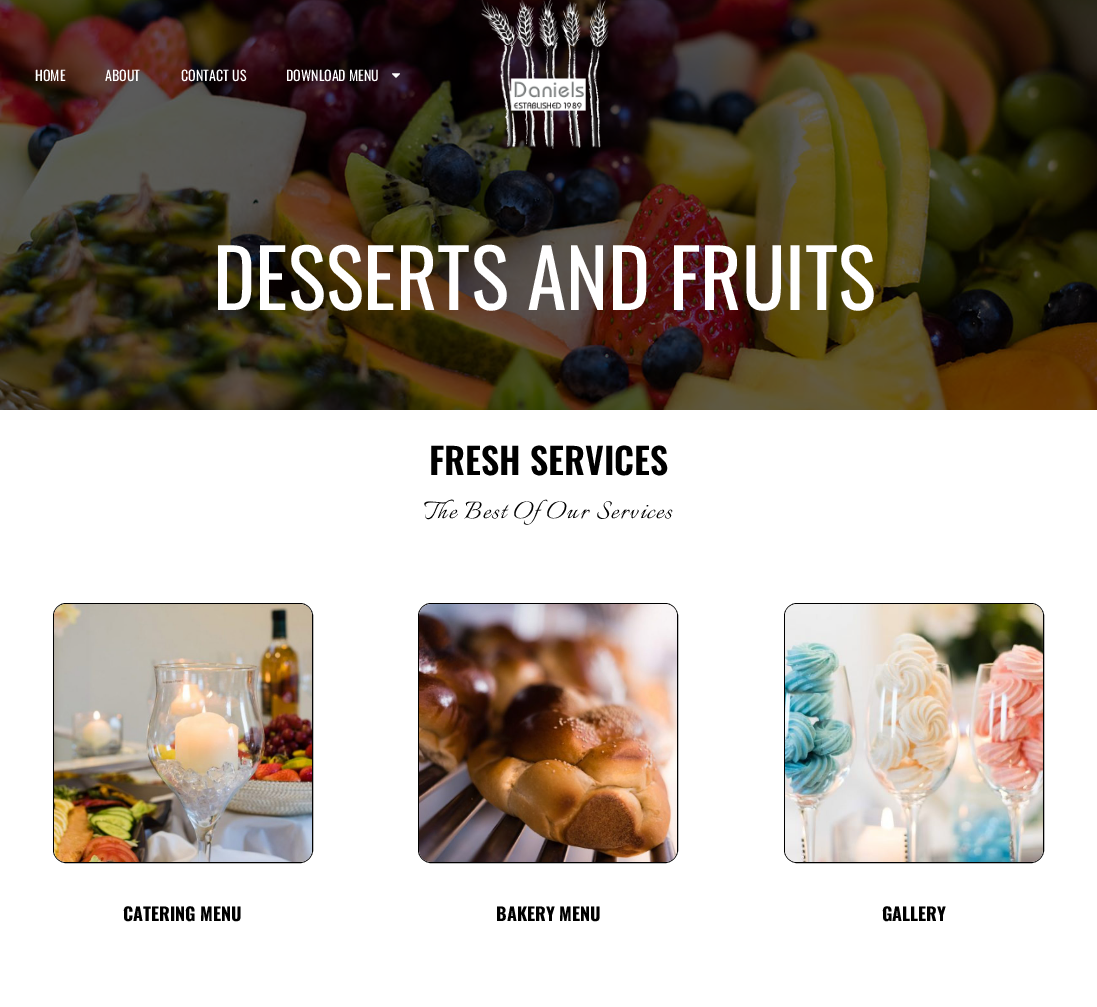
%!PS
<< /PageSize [1097 1007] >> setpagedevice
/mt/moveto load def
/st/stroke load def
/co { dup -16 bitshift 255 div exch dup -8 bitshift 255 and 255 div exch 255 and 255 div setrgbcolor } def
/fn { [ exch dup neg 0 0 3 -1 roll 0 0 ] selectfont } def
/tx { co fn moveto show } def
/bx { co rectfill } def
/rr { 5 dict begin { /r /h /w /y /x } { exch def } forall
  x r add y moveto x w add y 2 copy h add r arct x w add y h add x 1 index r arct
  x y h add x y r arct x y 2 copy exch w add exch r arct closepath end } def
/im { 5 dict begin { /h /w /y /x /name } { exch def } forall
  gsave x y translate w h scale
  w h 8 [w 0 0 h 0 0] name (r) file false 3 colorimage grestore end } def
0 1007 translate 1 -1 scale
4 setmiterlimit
0 0 1097 1007 16#FFFFFF bx
(media/3.raw) 0 0 1097 410 im
(media/1.raw) 392 73 8 5 im
(media/2.raw) 481 0 128 149 im
16#000000 co
53.5 603.5 259 259 12.5 rr st
(media/4.raw) 54 604 258 258 im
418.5 603.5 259 259 12.5 rr st
(media/5.raw) 419 604 258 258 im
784.5 603.5 259 259 12.5 rr st
(media/6.raw) 785 604 258 258 im
(HOME) 35 81 /Oswald-Regular 14 16#FFFFFF tx
(ABOUT) 105 81 /Oswald-Regular 14 16#FFFFFF tx
(CONTACT US) 181 81 /Oswald-Regular 14 16#FFFFFF tx
(DOWNLOAD MENU) 286 81 /Oswald-Regular 14 16#FFFFFF tx
(DESSERTS AND FRUITS) 213 310 /Oswald-Regular 80 16#FFFFFF tx
(FRESH SERVICES) 429 475 /Oswald-SemiBold 36 16#000000 tx
/Italianno-Regular 30 fn
424 518 mt 1.5 0 (The Best Of Our Services) ashow
(CATERING MENU) 123 921 /Oswald-Bold 18 16#000000 tx
(BAKERY MENU) 496 921 /Oswald-Bold 18 16#000000 tx
(GALLERY) 882 921 /Oswald-Bold 18 16#000000 tx
showpage
